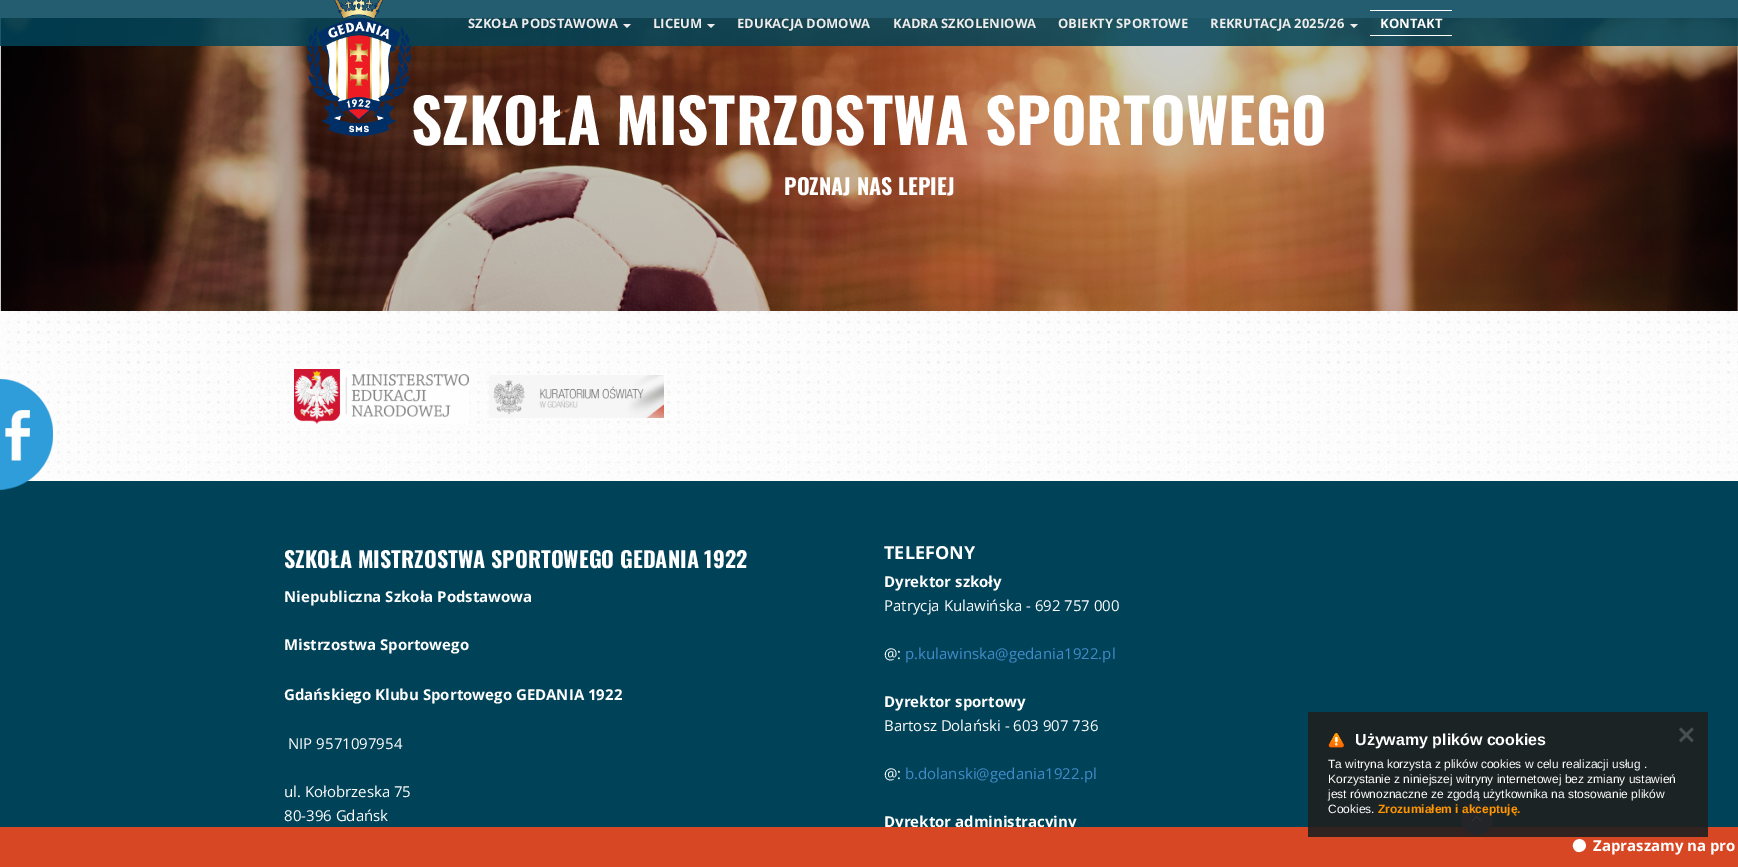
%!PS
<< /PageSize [1738 867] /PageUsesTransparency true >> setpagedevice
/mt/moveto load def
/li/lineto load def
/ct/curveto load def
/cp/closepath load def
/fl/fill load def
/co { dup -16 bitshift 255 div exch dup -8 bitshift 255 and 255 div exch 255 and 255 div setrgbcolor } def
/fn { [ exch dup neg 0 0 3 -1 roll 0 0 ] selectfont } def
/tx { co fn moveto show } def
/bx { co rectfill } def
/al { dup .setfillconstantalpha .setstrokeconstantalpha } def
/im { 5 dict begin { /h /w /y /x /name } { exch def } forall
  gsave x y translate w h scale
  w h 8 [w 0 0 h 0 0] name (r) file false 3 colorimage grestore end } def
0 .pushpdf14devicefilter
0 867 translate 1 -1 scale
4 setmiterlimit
0 0 1738 867 16#FFFFFF bx
(media/1.raw) 0 0 1738 481 im
(media/2.raw) 0 18 1738 293 im
0.86 al
0 0 1738 46 16#004358 bx
1 al
(media/3.raw) 307 0 104 137 im
16#ECECEC co
623 24 mt 631 24 li 627 28 li cp fl
707 24 mt 715 24 li 711 28 li cp fl
1350 24 mt 1358 24 li 1354 28 li cp fl
1370 10 82 1 16#FFFFFF bx
1370 35 82 1 16#FFFFFF bx
0 481 1738 346 16#004358 bx
(media/4.raw) 0 379 53 111 im
(media/5.raw) 294 369 175 55 im
(media/6.raw) 489 375 175 43 im
(SZKOŁA PODSTAWOWA) 468 28 /OpenSans-Bold 13 16#ECECEC tx
(LICEUM) 653 28 /OpenSans-Bold 13 16#ECECEC tx
(EDUKACJA DOMOWA) 737 28 /OpenSans-Bold 13 16#ECECEC tx
(KADRA SZKOLENIOWA) 893 28 /OpenSans-Bold 13 16#ECECEC tx
(OBIEKTY SPORTOWE) 1058 28 /OpenSans-Bold 13 16#ECECEC tx
(REKRUTACJA 2025/26) 1210 28 /OpenSans-Bold 13 16#ECECEC tx
(KONTAKT) 1380 28 /OpenSans-Bold 13 16#FFFFFF tx
(SZKOŁA MISTRZOSTWA SPORTOWEGO) 411 145 /Oswald-Bold 61 16#FFFFFF tx
(POZNAJ NAS LEPIEJ) 784 195 /Oswald-Bold 22 16#FFFFFF tx
(SZKOŁA MISTRZOSTWA SPORTOWEGO GEDANIA 1922) 284 568 /Oswald-Bold 22 16#FFFFFF tx
(Niepubliczna Szkoła Podstawowa) 284 602 /OpenSans-Bold 15 16#FFFFFF tx
(Mistrzostwa Sportowego) 284 650 /OpenSans-Bold 15 16#FFFFFF tx
(Gdańskiego Klubu Sportowego GEDANIA 1922) 284 700 /OpenSans-Bold 15 16#FFFFFF tx
(NIP 9571097954) 288 749 /OpenSans-Regular 15 16#FFFFFF tx
(ul. Kołobrzeska 75) 284 797 /OpenSans-Regular 15 16#FFFFFF tx
(80-396 Gdańsk) 284 821 /OpenSans-Regular 15 16#FFFFFF tx
(TELEFONY) 884 559 /OpenSans-Bold 18 16#FFFFFF tx
(Dyrektor szkoły) 884 587 /OpenSans-Bold 15 16#FFFFFF tx
(Patrycja Kulawińska - 692 757 000) 884 611 /OpenSans-Regular 15 16#FFFFFF tx
(@:) 884 659 /OpenSans-Regular 15 16#FFFFFF tx
(p.kulawinska@gedania1922.pl) 905 659 /OpenSans-Regular 15 16#428BCA tx
(Dyrektor sportowy) 884 707 /OpenSans-Bold 15 16#FFFFFF tx
(Bartosz Dolański - 603 907 736) 884 731 /OpenSans-Regular 15 16#FFFFFF tx
(@:) 884 779 /OpenSans-Regular 15 16#FFFFFF tx
(b.dolanski@gedania1922.pl) 905 779 /OpenSans-Regular 15 16#428BCA tx
(Dyrektor administracyjny) 884 827 /OpenSans-Bold 15 16#FFFFFF tx
0 827 1738 40 16#D84724 bx
(media/8.raw) 1461 803 32 32 im
0.9 al
1308 712 400 125 16#1F1F1F bx
1 al
(✕) 1676 744 /DejaVuSans-Bold 24 16#494F50 tx
(Zrozumiałem i akceptuję.) 1378 813 /LiberationSans-Bold 12 16#FF9600 tx
(Cookies.) 1328 813 /LiberationSans-Regular 12 16#FFFFFF tx
(jest równoznaczne ze zgodą użytkownika na stosowanie plików) 1328 798 /LiberationSans-Regular 12 16#FFFFFF tx
(Korzystanie z niniejszej witryny internetowej bez zmiany ustawień) 1328 783 /LiberationSans-Regular 12 16#FFFFFF tx
(Ta witryna korzysta z plików cookies w celu realizacji usług .) 1328 768 /LiberationSans-Regular 12 16#FFFFFF tx
(Używamy plików cookies) 1355 745 /LiberationSans-Bold 16 16#FFFFFF tx
(media/7.raw) 1328 733 16 15 im
(Zapraszamy na pro) 1593 851 /OpenSans-Bold 15 16#FFFFFF tx
1585 842.5 mt 1589 849.5 1578 856 1574 849 ct 1569.5 841.5 1580.5 835 1585 842.5 ct cp fl
.poppdf14devicefilter showpage
